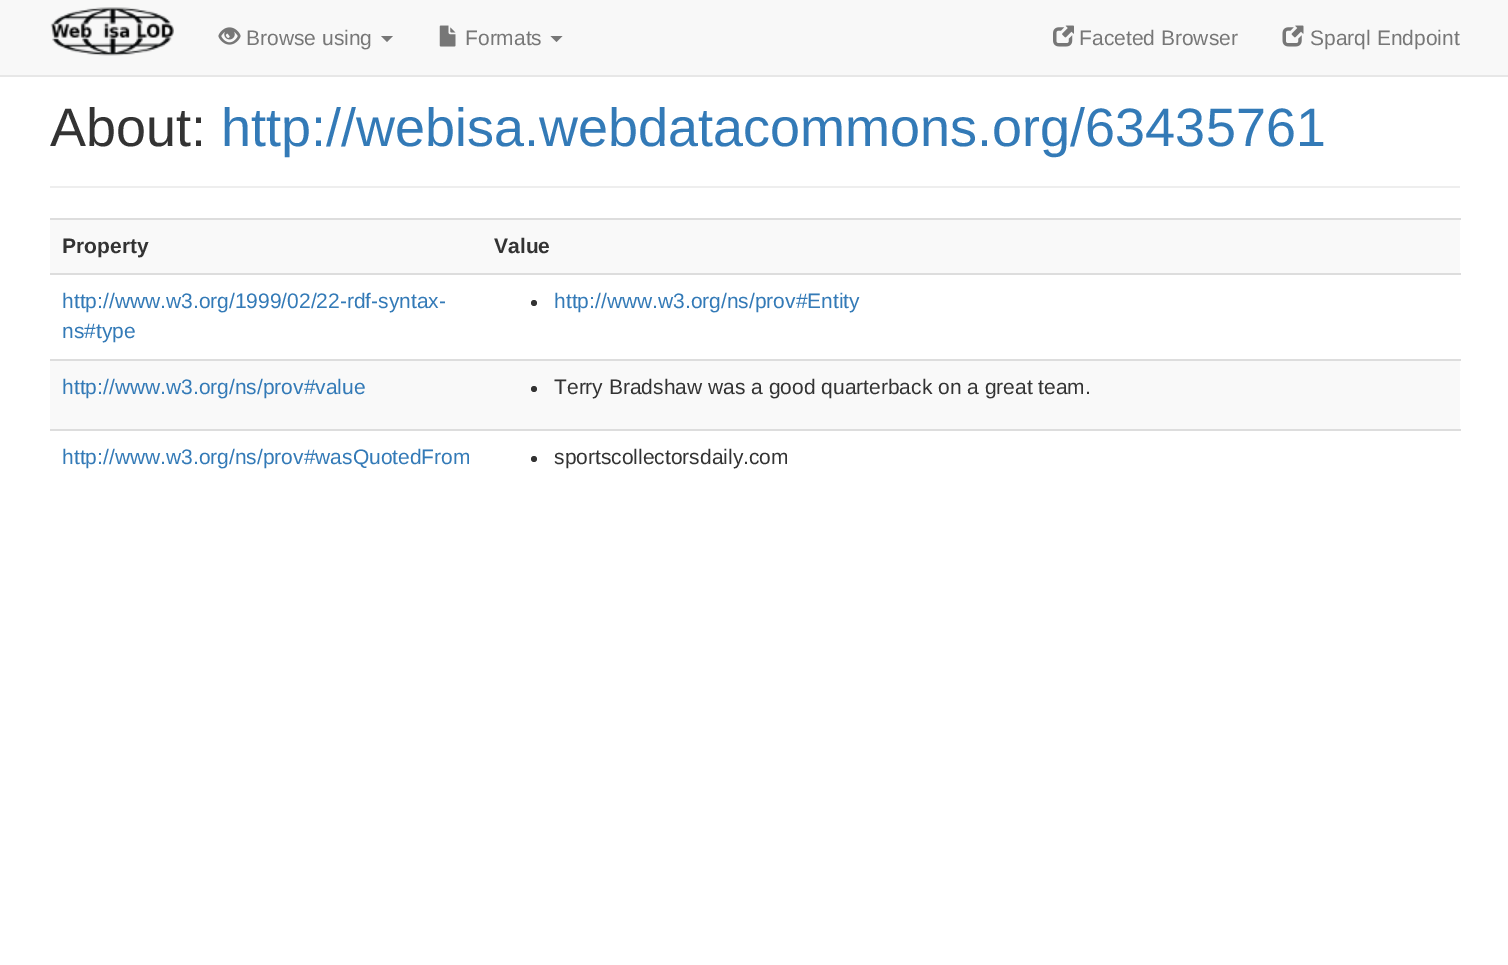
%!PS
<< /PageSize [1508 965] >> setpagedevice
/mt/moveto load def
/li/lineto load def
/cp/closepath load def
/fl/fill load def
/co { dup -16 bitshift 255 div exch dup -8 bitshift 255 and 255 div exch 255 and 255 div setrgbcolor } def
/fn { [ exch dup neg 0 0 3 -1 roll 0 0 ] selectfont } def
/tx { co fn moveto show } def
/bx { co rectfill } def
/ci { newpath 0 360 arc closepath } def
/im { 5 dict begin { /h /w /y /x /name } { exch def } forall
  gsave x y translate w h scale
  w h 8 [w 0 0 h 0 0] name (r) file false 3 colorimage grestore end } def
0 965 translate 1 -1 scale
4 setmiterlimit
0 0 1508 965 16#FFFFFF bx
0 0 1508 75 16#F8F8F8 bx
0 75 1508 2 16#E7E7E7 bx
(media/1.raw) 50 7 124 49 im
(media/2.raw) 218 27 23 18 im
16#777777 co
381 36 mt 393 36 li 387 42 li cp fl
(media/3.raw) 439 25 17 22 im
550.5 36 mt 562.5 36 li 556.5 42 li cp fl
(media/4.raw) 1053 25 21 22 im
(media/5.raw) 1282 25 22 22 im
50 186 1410 2 16#EEEEEE bx
50 220 1410 53 16#F9F9F9 bx
50 218 1411 2 16#DDDDDD bx
50 273 1411 2 16#DDDDDD bx
16#333333 co
534 303 3 ci fl
50 361 1410 68 16#F9F9F9 bx
50 359 1411 2 16#DDDDDD bx
16#333333 co
534 389 3 ci fl
50 429 1411 2 16#DDDDDD bx
16#333333 co
534 459 3 ci fl
(Browse using) 246 45 /LiberationSans-Regular 21 16#777777 tx
(Formats) 465 45 /LiberationSans-Regular 21 16#777777 tx
(Faceted Browser) 1079 45 /LiberationSans-Regular 21 16#777777 tx
(Sparql Endpoint) 1310 45 /LiberationSans-Regular 21 16#777777 tx
(About:) 50 146 /LiberationSans-Regular 54 16#333333 tx
(http://webisa.webdatacommons.org/63435761) 221 146 /LiberationSans-Regular 54 16#337AB7 tx
(Property) 62 253 /LiberationSans-Bold 21 16#333333 tx
(Value) 494 253 /LiberationSans-Bold 21 16#333333 tx
(http://www.w3.org/1999/02/22-rdf-syntax-) 62 308 /LiberationSans-Regular 21 16#337AB7 tx
(ns#type) 62 338 /LiberationSans-Regular 21 16#337AB7 tx
(http://www.w3.org/ns/prov#Entity) 554 308 /LiberationSans-Regular 21 16#337AB7 tx
(http://www.w3.org/ns/prov#value) 62 394 /LiberationSans-Regular 21 16#337AB7 tx
(Terry Bradshaw was a good quarterback on a great team.) 554 394 /LiberationSans-Regular 21 16#333333 tx
(http://www.w3.org/ns/prov#wasQuotedFrom) 62 464 /LiberationSans-Regular 21 16#337AB7 tx
(sportscollectorsdaily.com) 554 464 /LiberationSans-Regular 21 16#333333 tx
showpage
